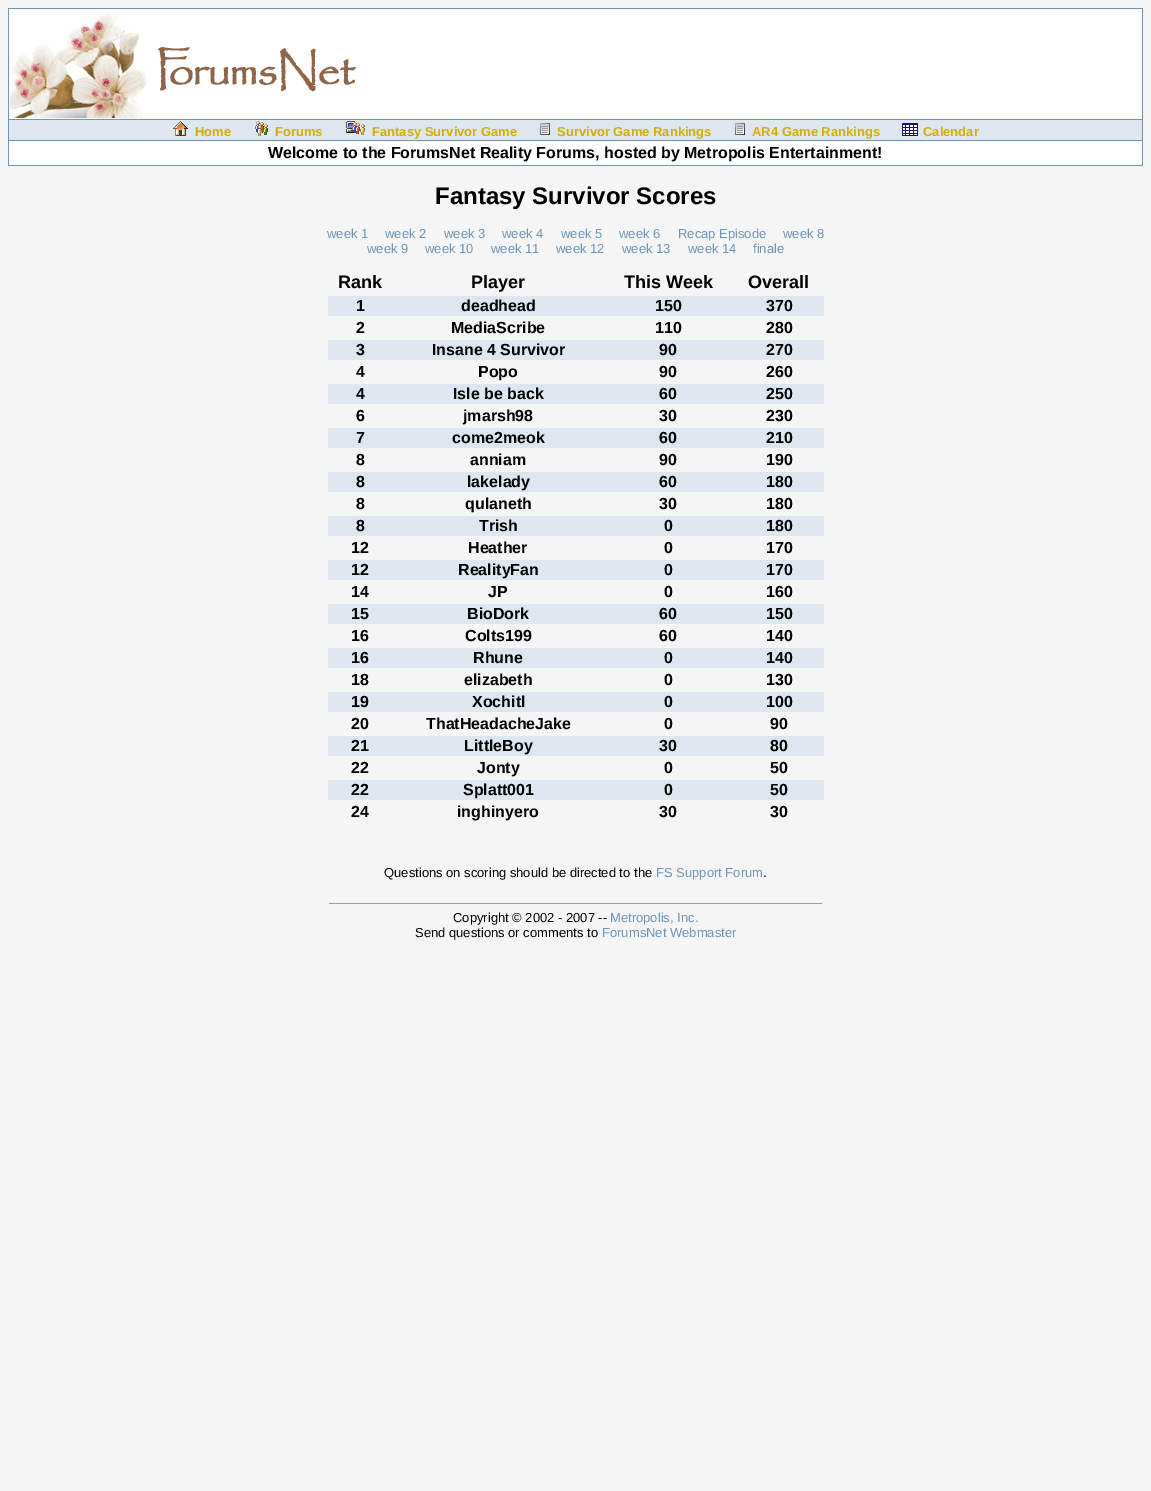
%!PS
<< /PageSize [1151 1491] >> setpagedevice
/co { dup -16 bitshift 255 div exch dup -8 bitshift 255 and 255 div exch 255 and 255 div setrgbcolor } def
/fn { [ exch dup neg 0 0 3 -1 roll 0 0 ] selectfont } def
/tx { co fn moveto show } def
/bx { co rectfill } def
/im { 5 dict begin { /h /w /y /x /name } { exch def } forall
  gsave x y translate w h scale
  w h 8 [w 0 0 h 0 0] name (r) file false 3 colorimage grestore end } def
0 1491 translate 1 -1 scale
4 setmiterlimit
0 0 1151 1491 16#F5F5F5 bx
8 8 1135 1 16#6E94B7 bx
1142 8 1 158 16#6E94B7 bx
8 165 1135 1 16#6E94B7 bx
8 8 1 158 16#6E94B7 bx
9 9 1133 110 16#FFFFFF bx
(media/1.raw) 10 12 346 106 im
9 120 1133 20 16#DEE7EF bx
8 119 1135 1 16#6E94B7 bx
(media/2.raw) 173 121 15 15 im
(media/3.raw) 255 121 13 15 im
(media/4.raw) 346 121 19 14 im
(media/5.raw) 540 123 10 12 im
(media/5.raw) 735 123 10 12 im
(media/6.raw) 902 123 16 13 im
9 141 1133 24 16#FFFFFF bx
8 140 1135 1 16#6E94B7 bx
328 296 496 20 16#DEE7EF bx
328 340 496 20 16#DEE7EF bx
328 384 496 20 16#DEE7EF bx
328 428 496 20 16#DEE7EF bx
328 472 496 20 16#DEE7EF bx
328 516 496 20 16#DEE7EF bx
328 560 496 20 16#DEE7EF bx
328 604 496 20 16#DEE7EF bx
328 648 496 20 16#DEE7EF bx
328 692 496 20 16#DEE7EF bx
328 736 496 20 16#DEE7EF bx
328 780 496 20 16#DEE7EF bx
329 903 494 1 16#9F9F9F bx
822 903 1 1 16#EEEEEE bx
(Home) 195 136 /LiberationSans-Bold 13 16#D4AD00 tx
(Forums) 275 136 /LiberationSans-Bold 13 16#D4AD00 tx
(Fantasy Survivor Game) 372 136 /LiberationSans-Bold 13 16#D4AD00 tx
(Survivor Game Rankings) 557 136 /LiberationSans-Bold 13 16#D4AD00 tx
(AR4 Game Rankings) 752 136 /LiberationSans-Bold 13 16#D4AD00 tx
(Calendar) 923 136 /LiberationSans-Bold 13 16#D4AD00 tx
(Welcome to the ForumsNet Reality Forums, hosted by Metropolis Entertainment!) 268 158 /LiberationSans-Bold 16 16#000000 tx
(Fantasy Survivor Scores) 435 204 /LiberationSans-Bold 24 16#000000 tx
(week 1) 327 238 /LiberationSans-Regular 13 16#6E94B7 tx
(week 8) 783 238 /LiberationSans-Regular 13 16#6E94B7 tx
(finale) 753 253 /LiberationSans-Regular 13 16#6E94B7 tx
(Rank) 338 288 /LiberationSans-Bold 18 16#000000 tx
(Player) 471 288 /LiberationSans-Bold 18 16#000000 tx
(This Week) 624 288 /LiberationSans-Bold 18 16#000000 tx
(Overall) 748 288 /LiberationSans-Bold 18 16#000000 tx
(1) 356 311 /LiberationSans-Bold 16 16#000000 tx
(deadhead) 461 311 /LiberationSans-Bold 16 16#000000 tx
(150) 655 311 /LiberationSans-Bold 16 16#000000 tx
(370) 766 311 /LiberationSans-Bold 16 16#000000 tx
(2) 356 333 /LiberationSans-Bold 16 16#000000 tx
(MediaScribe) 451 333 /LiberationSans-Bold 16 16#000000 tx
(110) 655 333 /LiberationSans-Bold 16 16#000000 tx
(280) 766 333 /LiberationSans-Bold 16 16#000000 tx
(3) 356 355 /LiberationSans-Bold 16 16#000000 tx
(Insane 4 Survivor) 432 355 /LiberationSans-Bold 16 16#000000 tx
(90) 659 355 /LiberationSans-Bold 16 16#000000 tx
(270) 766 355 /LiberationSans-Bold 16 16#000000 tx
(4) 356 377 /LiberationSans-Bold 16 16#000000 tx
(Popo) 478 377 /LiberationSans-Bold 16 16#000000 tx
(90) 659 377 /LiberationSans-Bold 16 16#000000 tx
(260) 766 377 /LiberationSans-Bold 16 16#000000 tx
(4) 356 399 /LiberationSans-Bold 16 16#000000 tx
(Isle be back) 453 399 /LiberationSans-Bold 16 16#000000 tx
(60) 659 399 /LiberationSans-Bold 16 16#000000 tx
(250) 766 399 /LiberationSans-Bold 16 16#000000 tx
(6) 356 421 /LiberationSans-Bold 16 16#000000 tx
(jmarsh98) 463 421 /LiberationSans-Bold 16 16#000000 tx
(30) 659 421 /LiberationSans-Bold 16 16#000000 tx
(230) 766 421 /LiberationSans-Bold 16 16#000000 tx
(7) 356 443 /LiberationSans-Bold 16 16#000000 tx
(come2meok) 452 443 /LiberationSans-Bold 16 16#000000 tx
(60) 659 443 /LiberationSans-Bold 16 16#000000 tx
(210) 766 443 /LiberationSans-Bold 16 16#000000 tx
(8) 356 465 /LiberationSans-Bold 16 16#000000 tx
(anniam) 470 465 /LiberationSans-Bold 16 16#000000 tx
(90) 659 465 /LiberationSans-Bold 16 16#000000 tx
(190) 766 465 /LiberationSans-Bold 16 16#000000 tx
(8) 356 487 /LiberationSans-Bold 16 16#000000 tx
(lakelady) 467 487 /LiberationSans-Bold 16 16#000000 tx
(60) 659 487 /LiberationSans-Bold 16 16#000000 tx
(180) 766 487 /LiberationSans-Bold 16 16#000000 tx
(8) 356 509 /LiberationSans-Bold 16 16#000000 tx
(qulaneth) 465 509 /LiberationSans-Bold 16 16#000000 tx
(30) 659 509 /LiberationSans-Bold 16 16#000000 tx
(180) 766 509 /LiberationSans-Bold 16 16#000000 tx
(8) 356 531 /LiberationSans-Bold 16 16#000000 tx
(Trish) 479 531 /LiberationSans-Bold 16 16#000000 tx
(0) 664 531 /LiberationSans-Bold 16 16#000000 tx
(180) 766 531 /LiberationSans-Bold 16 16#000000 tx
(12) 351 553 /LiberationSans-Bold 16 16#000000 tx
(Heather) 468 553 /LiberationSans-Bold 16 16#000000 tx
(0) 664 553 /LiberationSans-Bold 16 16#000000 tx
(170) 766 553 /LiberationSans-Bold 16 16#000000 tx
(12) 351 575 /LiberationSans-Bold 16 16#000000 tx
(RealityFan) 458 575 /LiberationSans-Bold 16 16#000000 tx
(0) 664 575 /LiberationSans-Bold 16 16#000000 tx
(170) 766 575 /LiberationSans-Bold 16 16#000000 tx
(14) 351 597 /LiberationSans-Bold 16 16#000000 tx
(JP) 488 597 /LiberationSans-Bold 16 16#000000 tx
(0) 664 597 /LiberationSans-Bold 16 16#000000 tx
(160) 766 597 /LiberationSans-Bold 16 16#000000 tx
(15) 351 619 /LiberationSans-Bold 16 16#000000 tx
(BioDork) 467 619 /LiberationSans-Bold 16 16#000000 tx
(60) 659 619 /LiberationSans-Bold 16 16#000000 tx
(150) 766 619 /LiberationSans-Bold 16 16#000000 tx
(16) 351 641 /LiberationSans-Bold 16 16#000000 tx
(Colts199) 465 641 /LiberationSans-Bold 16 16#000000 tx
(60) 659 641 /LiberationSans-Bold 16 16#000000 tx
(140) 766 641 /LiberationSans-Bold 16 16#000000 tx
(16) 351 663 /LiberationSans-Bold 16 16#000000 tx
(Rhune) 473 663 /LiberationSans-Bold 16 16#000000 tx
(0) 664 663 /LiberationSans-Bold 16 16#000000 tx
(140) 766 663 /LiberationSans-Bold 16 16#000000 tx
(18) 351 685 /LiberationSans-Bold 16 16#000000 tx
(elizabeth) 464 685 /LiberationSans-Bold 16 16#000000 tx
(0) 664 685 /LiberationSans-Bold 16 16#000000 tx
(130) 766 685 /LiberationSans-Bold 16 16#000000 tx
(19) 351 707 /LiberationSans-Bold 16 16#000000 tx
(Xochitl) 472 707 /LiberationSans-Bold 16 16#000000 tx
(0) 664 707 /LiberationSans-Bold 16 16#000000 tx
(100) 766 707 /LiberationSans-Bold 16 16#000000 tx
(20) 351 729 /LiberationSans-Bold 16 16#000000 tx
(ThatHeadacheJake) 426 729 /LiberationSans-Bold 16 16#000000 tx
(0) 664 729 /LiberationSans-Bold 16 16#000000 tx
(90) 770 729 /LiberationSans-Bold 16 16#000000 tx
(21) 351 751 /LiberationSans-Bold 16 16#000000 tx
(LittleBoy) 464 751 /LiberationSans-Bold 16 16#000000 tx
(30) 659 751 /LiberationSans-Bold 16 16#000000 tx
(80) 770 751 /LiberationSans-Bold 16 16#000000 tx
(22) 351 773 /LiberationSans-Bold 16 16#000000 tx
(Jonty) 477 773 /LiberationSans-Bold 16 16#000000 tx
(0) 664 773 /LiberationSans-Bold 16 16#000000 tx
(50) 770 773 /LiberationSans-Bold 16 16#000000 tx
(22) 351 795 /LiberationSans-Bold 16 16#000000 tx
(Splatt001) 463 795 /LiberationSans-Bold 16 16#000000 tx
(0) 664 795 /LiberationSans-Bold 16 16#000000 tx
(50) 770 795 /LiberationSans-Bold 16 16#000000 tx
(24) 351 817 /LiberationSans-Bold 16 16#000000 tx
(inghinyero) 457 817 /LiberationSans-Bold 16 16#000000 tx
(30) 659 817 /LiberationSans-Bold 16 16#000000 tx
(30) 770 817 /LiberationSans-Bold 16 16#000000 tx
(Questions on scoring should be directed to the) 384 877 /LiberationSans-Regular 13 16#000000 tx
(FS Support Forum) 656 877 /LiberationSans-Regular 13 16#6E94B7 tx
(.) 763 877 /LiberationSans-Regular 13 16#000000 tx
(Copyright © 2002 - 2007 --) 453 922 /LiberationSans-Regular 13 16#000000 tx
(Metropolis, Inc.) 610 922 /LiberationSans-Regular 13 16#6E94B7 tx
(Send questions or comments to) 415 937 /LiberationSans-Regular 13 16#000000 tx
(ForumsNet Webmaster) 602 937 /LiberationSans-Regular 13 16#6E94B7 tx
(week 14) 688 253 /LiberationSans-Regular 13 16#6E94B7 tx
(week 13) 622 253 /LiberationSans-Regular 13 16#6E94B7 tx
(week 12) 556 253 /LiberationSans-Regular 13 16#6E94B7 tx
(week 11) 491 253 /LiberationSans-Regular 13 16#6E94B7 tx
(week 10) 425 253 /LiberationSans-Regular 13 16#6E94B7 tx
(week 9) 367 253 /LiberationSans-Regular 13 16#6E94B7 tx
(Recap Episode) 678 238 /LiberationSans-Regular 13 16#6E94B7 tx
(week 6) 619 238 /LiberationSans-Regular 13 16#6E94B7 tx
(week 5) 561 238 /LiberationSans-Regular 13 16#6E94B7 tx
(week 4) 502 238 /LiberationSans-Regular 13 16#6E94B7 tx
(week 3) 444 238 /LiberationSans-Regular 13 16#6E94B7 tx
(week 2) 385 238 /LiberationSans-Regular 13 16#6E94B7 tx
showpage
